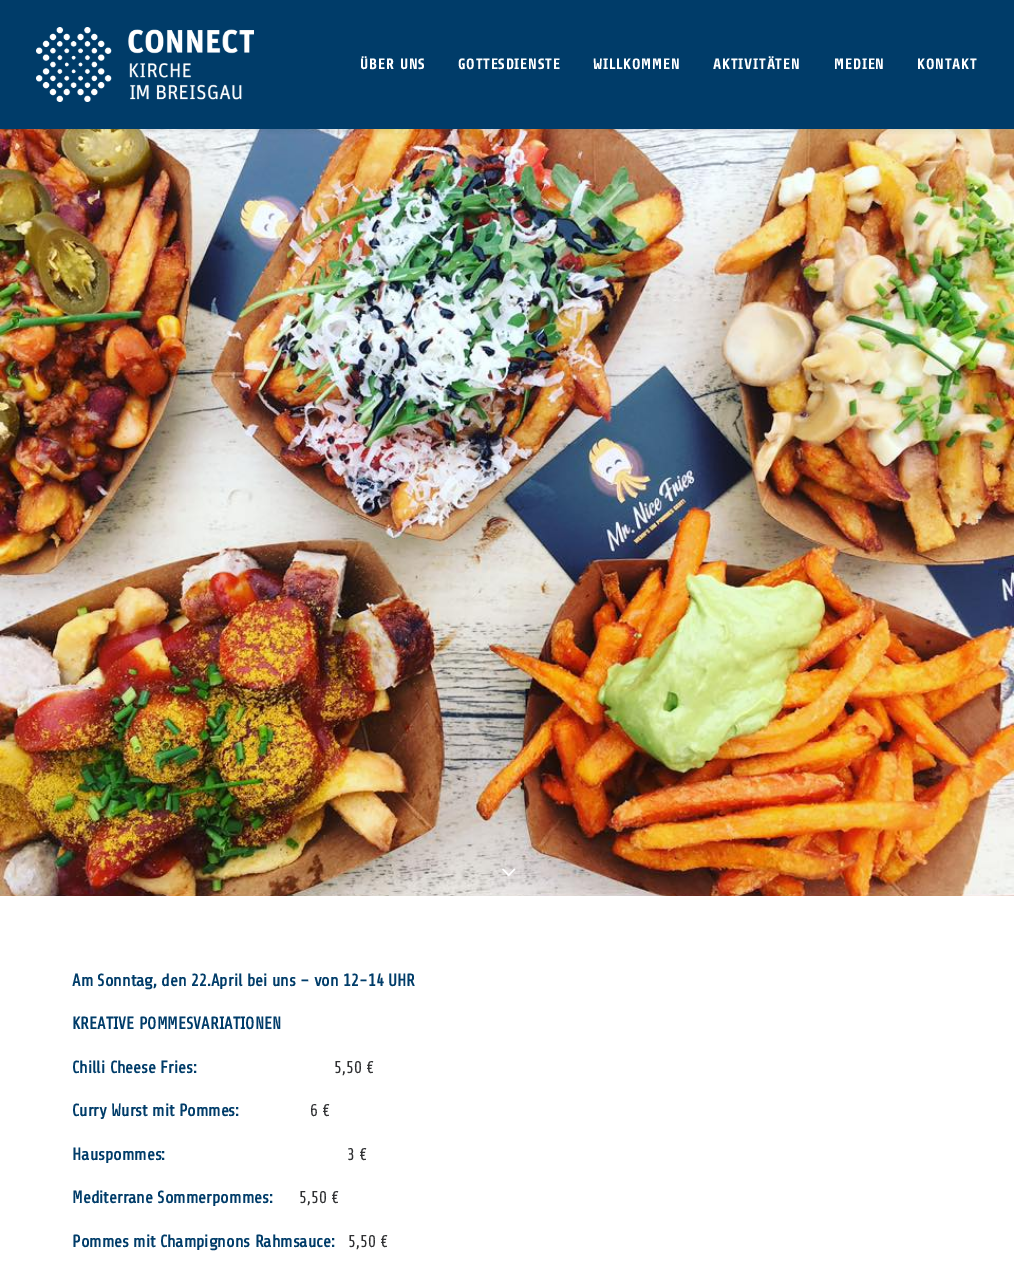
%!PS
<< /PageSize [1014 1281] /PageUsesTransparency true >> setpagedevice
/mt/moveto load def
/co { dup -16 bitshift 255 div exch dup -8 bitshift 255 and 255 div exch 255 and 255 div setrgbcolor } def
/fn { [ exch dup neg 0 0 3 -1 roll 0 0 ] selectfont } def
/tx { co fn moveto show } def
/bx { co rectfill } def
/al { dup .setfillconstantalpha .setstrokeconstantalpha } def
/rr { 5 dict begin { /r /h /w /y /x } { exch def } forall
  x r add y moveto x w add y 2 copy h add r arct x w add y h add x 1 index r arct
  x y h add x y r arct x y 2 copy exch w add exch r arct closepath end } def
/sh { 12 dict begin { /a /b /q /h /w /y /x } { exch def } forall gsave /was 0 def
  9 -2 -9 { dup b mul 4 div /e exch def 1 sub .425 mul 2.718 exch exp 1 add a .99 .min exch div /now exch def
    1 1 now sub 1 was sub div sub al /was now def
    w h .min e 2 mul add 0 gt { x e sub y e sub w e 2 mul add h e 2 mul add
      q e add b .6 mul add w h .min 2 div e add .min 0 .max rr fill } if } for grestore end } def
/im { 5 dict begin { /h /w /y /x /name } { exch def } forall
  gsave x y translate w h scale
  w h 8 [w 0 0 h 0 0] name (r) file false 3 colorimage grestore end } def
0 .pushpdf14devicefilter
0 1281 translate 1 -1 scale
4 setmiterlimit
0 0 1014 1281 16#FFFFFF bx
(media/2.raw) 0 129 1014 767 im
16#000000 co
10 14 994 109 0 5 .6 sh
0 0 1014 129 16#003C69 bx
(media/1.raw) 36 27 218 75 im
(media/3.raw) 502 868 14 9 im
/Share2-Bold 15 fn
16#FFFFFF co
360 69 mt .75 0 (ÜBER UNS) ashow
458 69 mt .75 0 (GOTTESDIENSTE) ashow
593 69 mt .75 0 (WILLKOMMEN) ashow
713 69 mt .75 0 (AKTIVITÄTEN) ashow
834 69 mt .75 0 (MEDIEN) ashow
917 69 mt .75 0 (KONTAKT) ashow
(Am Sonntag, den 22.April bei uns – von 12-14 UHR) 72 986 /Share-Bold 17 16#003C69 tx
(KREATIVE POMMESVARIATIONEN) 72 1029 /Share-Bold 17 16#003C69 tx
(Chilli Cheese Fries:) 72 1073 /Share-Bold 17 16#003C69 tx
(5,50 €) 334 1073 /Share-Regular 17 16#303133 tx
(Curry Wurst mit Pommes:) 72 1116 /Share-Bold 17 16#003C69 tx
(6 €) 310 1116 /Share-Regular 17 16#303133 tx
(Hauspommes:) 72 1160 /Share-Bold 17 16#003C69 tx
(3 €) 347 1160 /Share-Regular 17 16#303133 tx
(Mediterrane Sommerpommes:) 72 1203 /Share-Bold 17 16#003C69 tx
(5,50 €) 299 1203 /Share-Regular 17 16#303133 tx
(Pommes mit Champignons Rahmsauce:) 72 1247 /Share-Bold 17 16#003C69 tx
(5,50 €) 348 1247 /Share-Regular 17 16#303133 tx
.poppdf14devicefilter showpage
